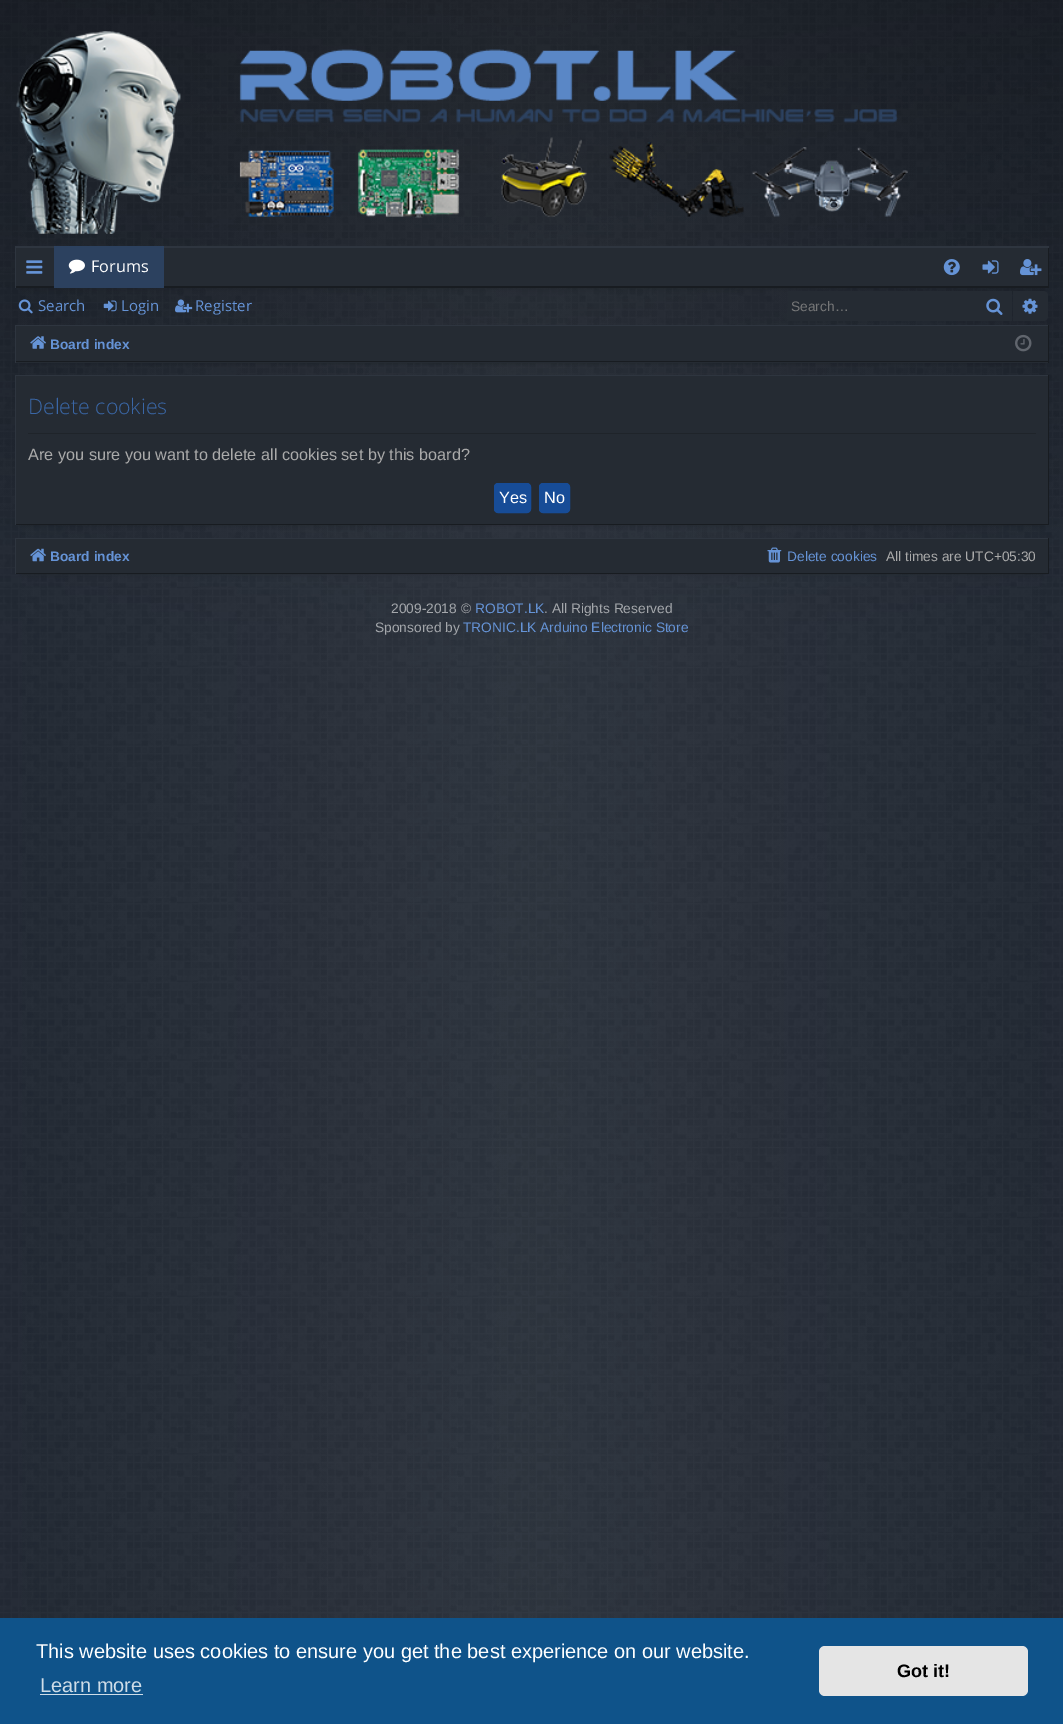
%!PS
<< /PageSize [1063 1724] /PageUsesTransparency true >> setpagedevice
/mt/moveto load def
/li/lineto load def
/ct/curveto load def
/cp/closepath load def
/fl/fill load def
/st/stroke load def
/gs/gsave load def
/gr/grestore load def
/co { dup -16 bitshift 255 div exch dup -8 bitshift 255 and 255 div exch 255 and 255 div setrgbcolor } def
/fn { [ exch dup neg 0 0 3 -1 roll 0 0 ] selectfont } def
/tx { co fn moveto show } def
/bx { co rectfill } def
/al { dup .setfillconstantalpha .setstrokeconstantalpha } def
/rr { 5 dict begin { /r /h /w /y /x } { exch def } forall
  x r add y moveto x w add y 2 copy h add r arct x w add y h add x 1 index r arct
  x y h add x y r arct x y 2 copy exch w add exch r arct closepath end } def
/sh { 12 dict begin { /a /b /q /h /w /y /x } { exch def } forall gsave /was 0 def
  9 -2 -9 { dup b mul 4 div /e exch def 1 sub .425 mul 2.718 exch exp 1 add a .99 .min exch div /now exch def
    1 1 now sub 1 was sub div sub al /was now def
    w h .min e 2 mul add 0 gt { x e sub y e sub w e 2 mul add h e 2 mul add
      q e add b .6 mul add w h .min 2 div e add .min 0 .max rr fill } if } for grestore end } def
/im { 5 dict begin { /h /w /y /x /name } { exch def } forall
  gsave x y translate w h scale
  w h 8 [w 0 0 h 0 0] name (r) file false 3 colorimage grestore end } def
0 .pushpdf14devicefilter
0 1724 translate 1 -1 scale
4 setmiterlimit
0 0 1063 1724 16#1C232E bx
(media/1.raw) 0 0 1063 1618 im
(media/2.raw) 16 31 892 203 im
16#000000 co
21 259 1022 29 0 3 .2 sh
16 248 1032 38 16#252B33 bx
gs
15 246 1034 42 rectclip
16#181C21 co
-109 122 mt 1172 122 li 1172 411 li -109 411 li cp 14 245 mt 1048 245 li 1048 286 li 14 286 li cp eofill
16#2E353F co
-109 122 mt 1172 122 li 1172 411 li -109 411 li cp 16 248 mt 1050 248 li 1050 289 li 16 289 li cp eofill
gr
(media/3.raw) 26 260 17 14 im
54 246 110 42 16#2C415F bx
(media/4.raw) 68 259 17 15 im
(media/5.raw) 943 259 17 17 im
(media/6.raw) 982 260 17 14 im
(media/7.raw) 1020 259 22 17 im
(media/8.raw) 18 299 15 15 im
(media/9.raw) 103 300 14 12 im
(media/10.raw) 175 299 18 14 im
788 291 187 30 16#252B33 bx
975 291 37 30 16#252B33 bx
(media/11.raw) 986 298 17 17 im
1013 291 mt 1043 291 li 1046 291 1048 293 1048 296 ct 1048 316 li 1048 319 1046 321 1043 321 ct 1013 321 li cp fl
(media/12.raw) 1022 298 16 16 im
16#000000 co
21 338 1022 25 0 3 .2 sh
16 326 1032 37 16#252B33 bx
15 325 1034 1 16#2E353F bx
1048 325 1 38 16#181C21 bx
15 361 1034 1 16#181C21 bx
15 325 1 38 16#2E353F bx
(media/13.raw) 30 336 16 13 im
(media/14.raw) 1015 334 17 18 im
16#000000 co
21 388 1022 137 0 3 .2 sh
16 376 1032 148 16#252B33 bx
15 375 1034 1 16#2E353F bx
1048 375 1 150 16#181C21 bx
15 524 1034 1 16#181C21 bx
15 375 1 150 16#2E353F bx
28 433 1008 1 16#1F242A bx
16#174C97 co
494.5 483.5 36 29 3.5 rr gs fl gr
st
539.5 483.5 30 29 3.5 rr gs fl gr
st
16#000000 co
21 550 1022 24 0 3 .2 sh
16 539 1032 34 16#252B33 bx
15 538 1034 1 16#2E353F bx
1048 538 1 36 16#181C21 bx
15 573 1034 1 16#181C21 bx
15 538 1 36 16#2E353F bx
(media/15.raw) 30 548 16 14 im
(media/16.raw) 767 547 15 16 im
0 1618 1063 106 16#0F538A bx
40 1694 103 1 16#CFDDE8 bx
16#E5E5E5 co
819 1646 209 50 6 rr fl
(Forums) 91 272 /OpenSans-Regular 16.25 16#FFFFFF tx
(Search) 38 311 /OpenSans-Regular 15 16#6593D6 tx
(Login) 121 311 /OpenSans-Regular 15 16#6593D6 tx
(Register) 195 311 /OpenSans-Regular 15 16#6593D6 tx
(Search…) 791 311 /LiberationSans-Regular 13.75 16#757677 tx
(Board index) 50 349 /LiberationSans-Bold 13.75 16#6593D6 tx
(Delete cookies) 28 414 /OpenSans-Light 21.25 16#3A67A7 tx
(Are you sure you want to delete all cookies set by this board?) 28 460 /LiberationSans-Regular 16.25 16#AAAAAA tx
(Yes) 499 503 /LiberationSans-Regular 16.25 16#FFFFFF tx
(No) 544 503 /LiberationSans-Regular 16.25 16#FFFFFF tx
(Board index) 50 561 /LiberationSans-Bold 13.75 16#6593D6 tx
(Delete cookies) 787 561 /LiberationSans-Regular 13.75 16#6593D6 tx
(All times are UTC+05:30) 886 561 /LiberationSans-Regular 13.75 16#AAAAAA tx
(2009-2018 ©) 391 613 /LiberationSans-Regular 13.75 16#A4A7AB tx
(ROBOT.LK) 475 613 /LiberationSans-Regular 13.75 16#6593D6 tx
(. All Rights Reserved) 544 613 /LiberationSans-Regular 13.75 16#A4A7AB tx
(Sponsored by) 375 632 /LiberationSans-Regular 13.75 16#A4A7AB tx
(TRONIC.LK Arduino Electronic Store) 463 632 /LiberationSans-Regular 13.75 16#6593D6 tx
(This website uses cookies to ensure you get the best experience on our website.) 36 1658 /LiberationSans-Regular 20 16#FFFFFF tx
(Learn more) 40 1692 /LiberationSans-Regular 20 16#CFDDE8 tx
(Got it!) 897 1677 /LiberationSans-Bold 18 16#000000 tx
.poppdf14devicefilter showpage
